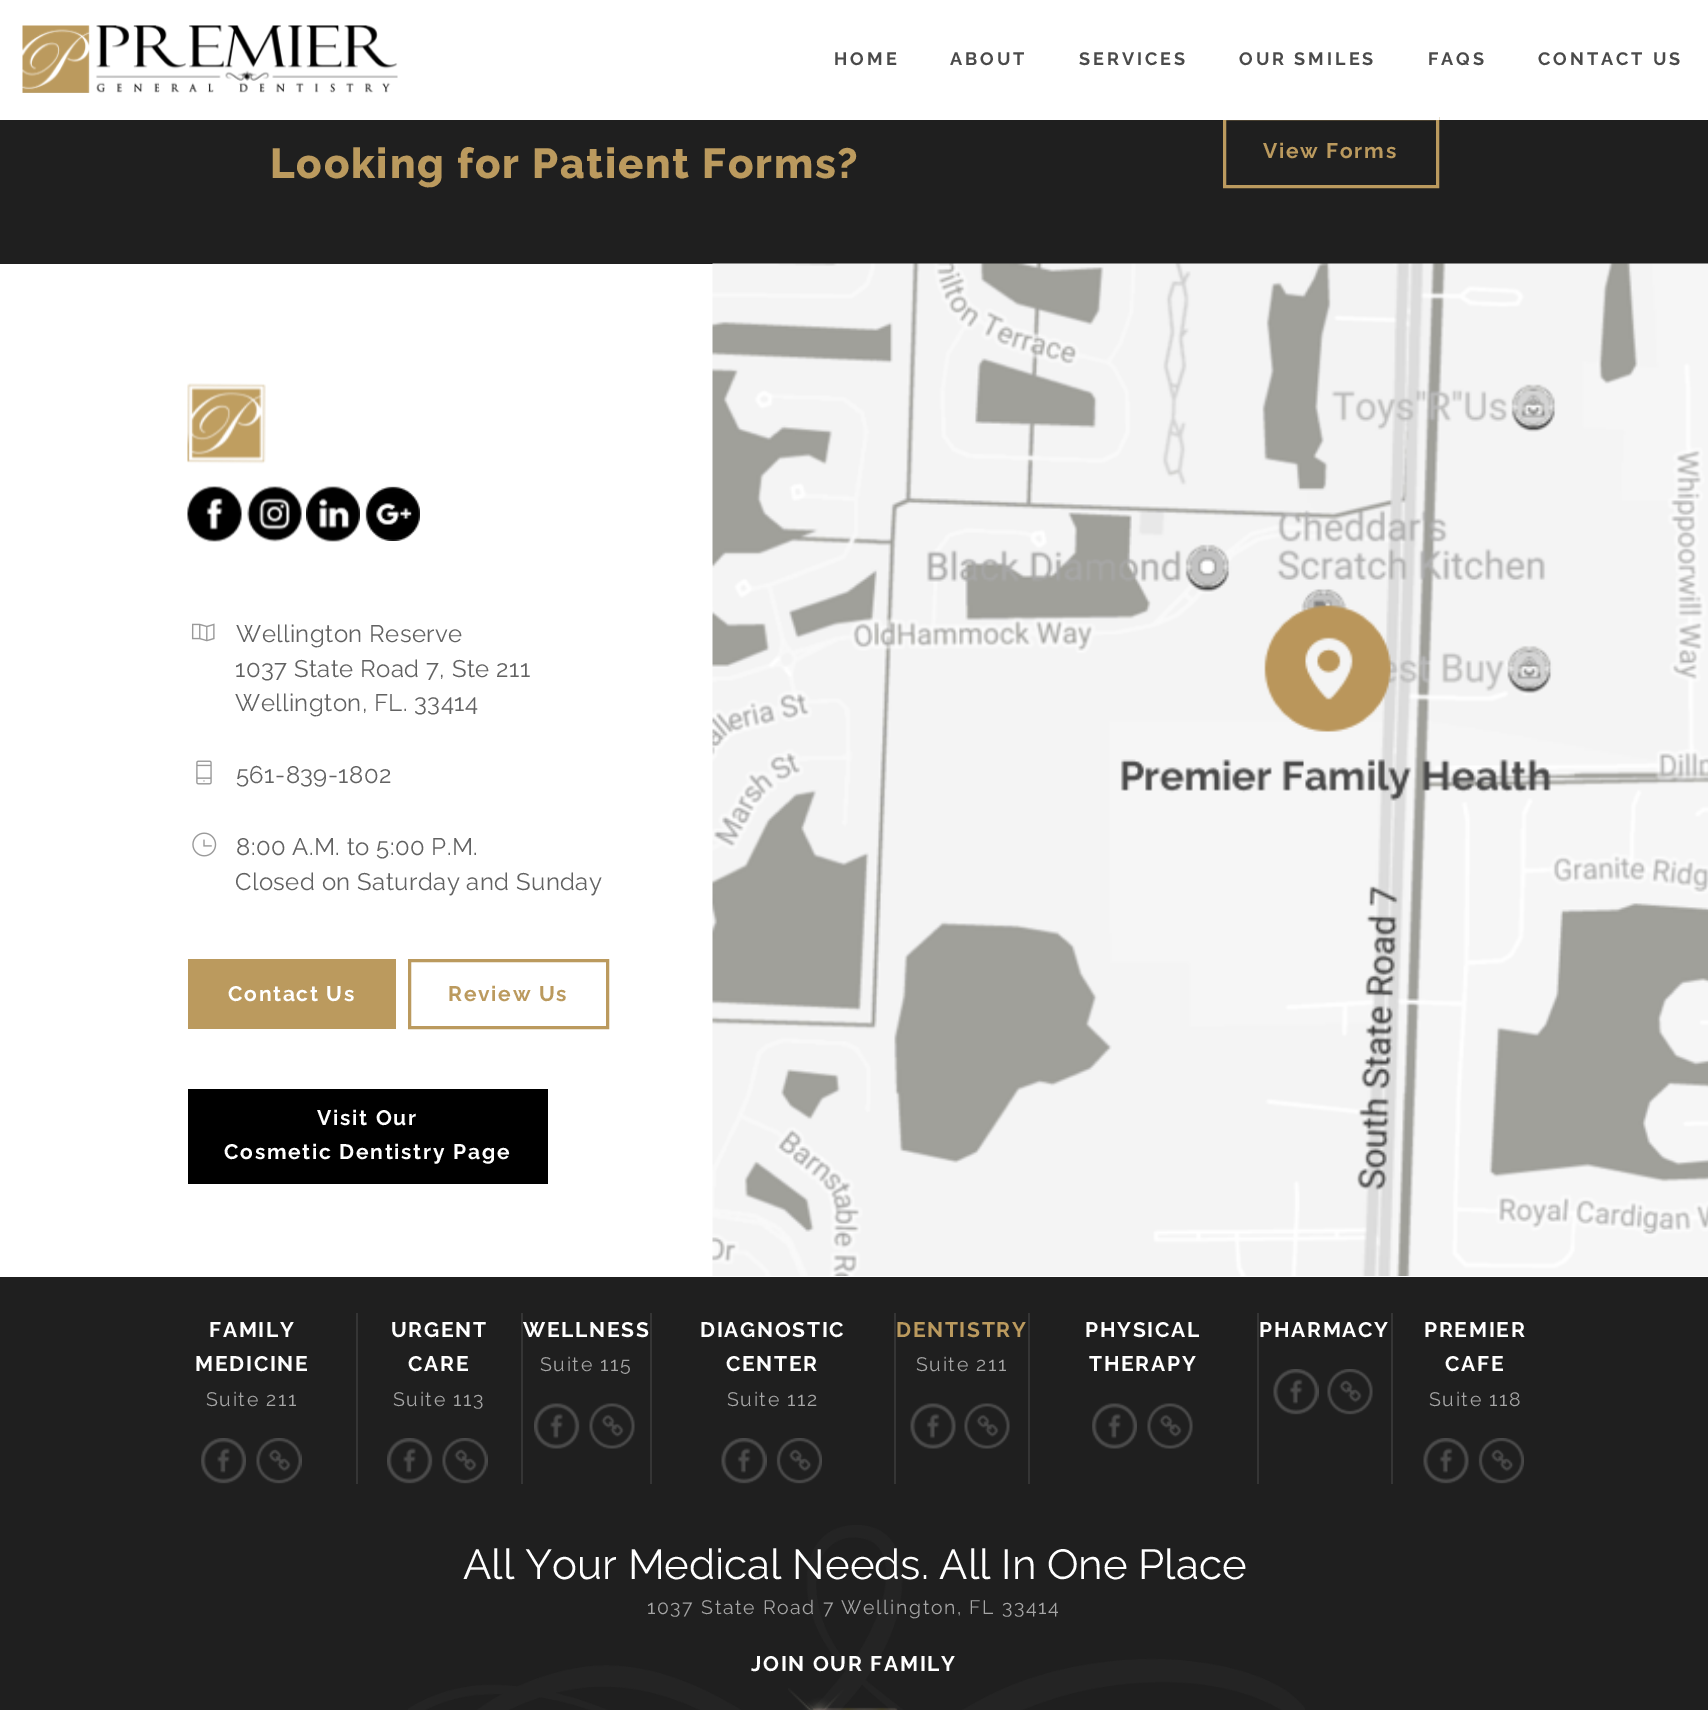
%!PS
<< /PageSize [1708 1710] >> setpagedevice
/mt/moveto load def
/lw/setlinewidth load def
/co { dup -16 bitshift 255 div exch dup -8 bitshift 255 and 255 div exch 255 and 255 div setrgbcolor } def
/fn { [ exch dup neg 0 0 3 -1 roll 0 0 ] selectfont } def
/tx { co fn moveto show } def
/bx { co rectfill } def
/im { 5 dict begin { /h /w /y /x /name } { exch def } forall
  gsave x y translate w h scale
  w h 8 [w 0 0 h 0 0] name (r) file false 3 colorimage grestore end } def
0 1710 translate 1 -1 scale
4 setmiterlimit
0 0 1708 1710 16#FFFFFF bx
0 120 1708 144 16#1F1F1F bx
16#BB9A5E co
3 lw
1224.5 118.5 213 68 rectstroke
1223 117 216 3 16#FFFFFF bx
(media/1.raw) 22 25 376 68 im
(media/2.raw) 187 383 79 81 im
(media/3.raw) 187 486 55 56 im
(media/4.raw) 247 486 55 56 im
(media/5.raw) 306 486 54 56 im
(media/6.raw) 365 486 55 55 im
(media/7.raw) 191 623 24 19 im
(media/8.raw) 196 760 16 25 im
(media/9.raw) 192 832 25 25 im
188 959 208 70 16#BB9A5E bx
409.5 960.5 198 67 rectstroke
188 1089 360 95 16#000000 bx
(media/10.raw) 712 263 996 1013 im
0 1277 1708 433 16#1F1F1F bx
(media/11.raw) 408 1525 897 185 im
(media/12.raw) 201 1438 45 46 im
(media/13.raw) 256 1438 46 46 im
356 1313 2 171 16#353535 bx
(media/14.raw) 387 1438 46 46 im
(media/13.raw) 442 1438 46 46 im
521 1313 2 171 16#353535 bx
(media/15.raw) 534 1403 46 46 im
(media/16.raw) 589 1403 46 46 im
650 1313 2 171 16#353535 bx
(media/17.raw) 721 1438 46 46 im
(media/18.raw) 776 1438 46 46 im
894 1313 2 171 16#353535 bx
(media/19.raw) 910 1403 46 46 im
(media/16.raw) 964 1403 46 46 im
1028 1313 2 171 16#353535 bx
(media/20.raw) 1092 1403 45 46 im
(media/16.raw) 1147 1403 46 46 im
1257 1313 2 171 16#353535 bx
(media/17.raw) 1273 1369 46 46 im
(media/21.raw) 1327 1369 46 46 im
1391 1313 2 171 16#353535 bx
(media/22.raw) 1423 1438 46 46 im
(media/18.raw) 1478 1438 46 46 im
(media/23.raw) 788 1688 110 22 im
/Raleway-Bold 18 fn
16#4A4A4A co
834 65 mt 3 0 (HOME) ashow
950 65 mt 3 0 (ABOUT) ashow
1079 65 mt 3 0 (SERVICES) ashow
1239 65 mt 3 0 (OUR SMILES) ashow
1428 65 mt 3 0 (FAQS) ashow
1538 65 mt 3 0 (CONTACT US) ashow
/Raleway-ExtraBold 42 fn
16#BB9A5E co
270 178 mt 1.7 0 (Looking for Patient Forms?) ashow
/Raleway-Bold 21 fn
1263 158 mt 1.7 0 (View Forms) ashow
/Raleway-Regular 24 fn
16#626262 co
236 642 mt .4 0 (Wellington Reserve) ashow
235 677 mt .4 0 (1037 State Road 7, Ste 211) ashow
235 711 mt .4 0 (Wellington, FL. 33414) ashow
236 783 mt .4 0 (561-839-1802) ashow
236 855 mt .4 0 (8:00 A.M. to 5:00 P.M.) ashow
235 890 mt .4 0 (Closed on Saturday and Sunday) ashow
/Raleway-Bold 21 fn
16#FFFFFF co
228 1001 mt 1.7 0 (Contact Us) ashow
16#BB9A5E co
448 1001 mt 1.7 0 (Review Us) ashow
16#FFFFFF co
317 1125 mt 1.7 0 (Visit Our) ashow
224 1159 mt 1.7 0 (Cosmetic Dentistry Page) ashow
209 1337 mt 1.7 0 (FAMILY) ashow
195 1371 mt 1.7 0 (MEDICINE) ashow
/Raleway-Regular 19.5 fn
16#A5A5A5 co
206 1406 mt 1.6 0 (Suite 211) ashow
/Raleway-Bold 21 fn
16#FFFFFF co
391 1337 mt 1.7 0 (URGENT) ashow
408 1371 mt 1.7 0 (CARE) ashow
/Raleway-Regular 19.5 fn
16#A5A5A5 co
393 1406 mt 1.6 0 (Suite 113) ashow
/Raleway-Bold 21 fn
16#FFFFFF co
523 1337 mt 1.7 0 (WELLNESS) ashow
/Raleway-Regular 19.5 fn
16#A5A5A5 co
540 1371 mt 1.6 0 (Suite 115) ashow
/Raleway-Bold 21 fn
16#FFFFFF co
700 1337 mt 1.7 0 (DIAGNOSTIC) ashow
726 1371 mt 1.7 0 (CENTER) ashow
/Raleway-Regular 19.5 fn
16#A5A5A5 co
727 1406 mt 1.6 0 (Suite 112) ashow
/Raleway-Bold 21 fn
16#BB9A5E co
896 1337 mt 1.7 0 (DENTISTRY) ashow
/Raleway-Regular 19.5 fn
16#A5A5A5 co
916 1371 mt 1.6 0 (Suite 211) ashow
/Raleway-Bold 21 fn
16#FFFFFF co
1085 1337 mt 1.7 0 (PHYSICAL) ashow
1089 1371 mt 1.7 0 (THERAPY) ashow
1259 1337 mt 1.7 0 (PHARMACY) ashow
1424 1337 mt 1.7 0 (PREMIER) ashow
1445 1371 mt 1.7 0 (CAFE) ashow
/Raleway-Regular 19.5 fn
16#A5A5A5 co
1429 1406 mt 1.6 0 (Suite 118) ashow
(All Your Medical Needs. All In One Place) 463 1579 /Raleway-Regular 42 16#FFFFFF tx
/Raleway-Regular 19.5 fn
16#A5A5A5 co
647 1614 mt 1.6 0 (1037 State Road 7 Wellington, FL 33414) ashow
/Raleway-Bold 21 fn
16#FFFFFF co
751 1671 mt 1.7 0 (JOIN OUR FAMILY) ashow
showpage
